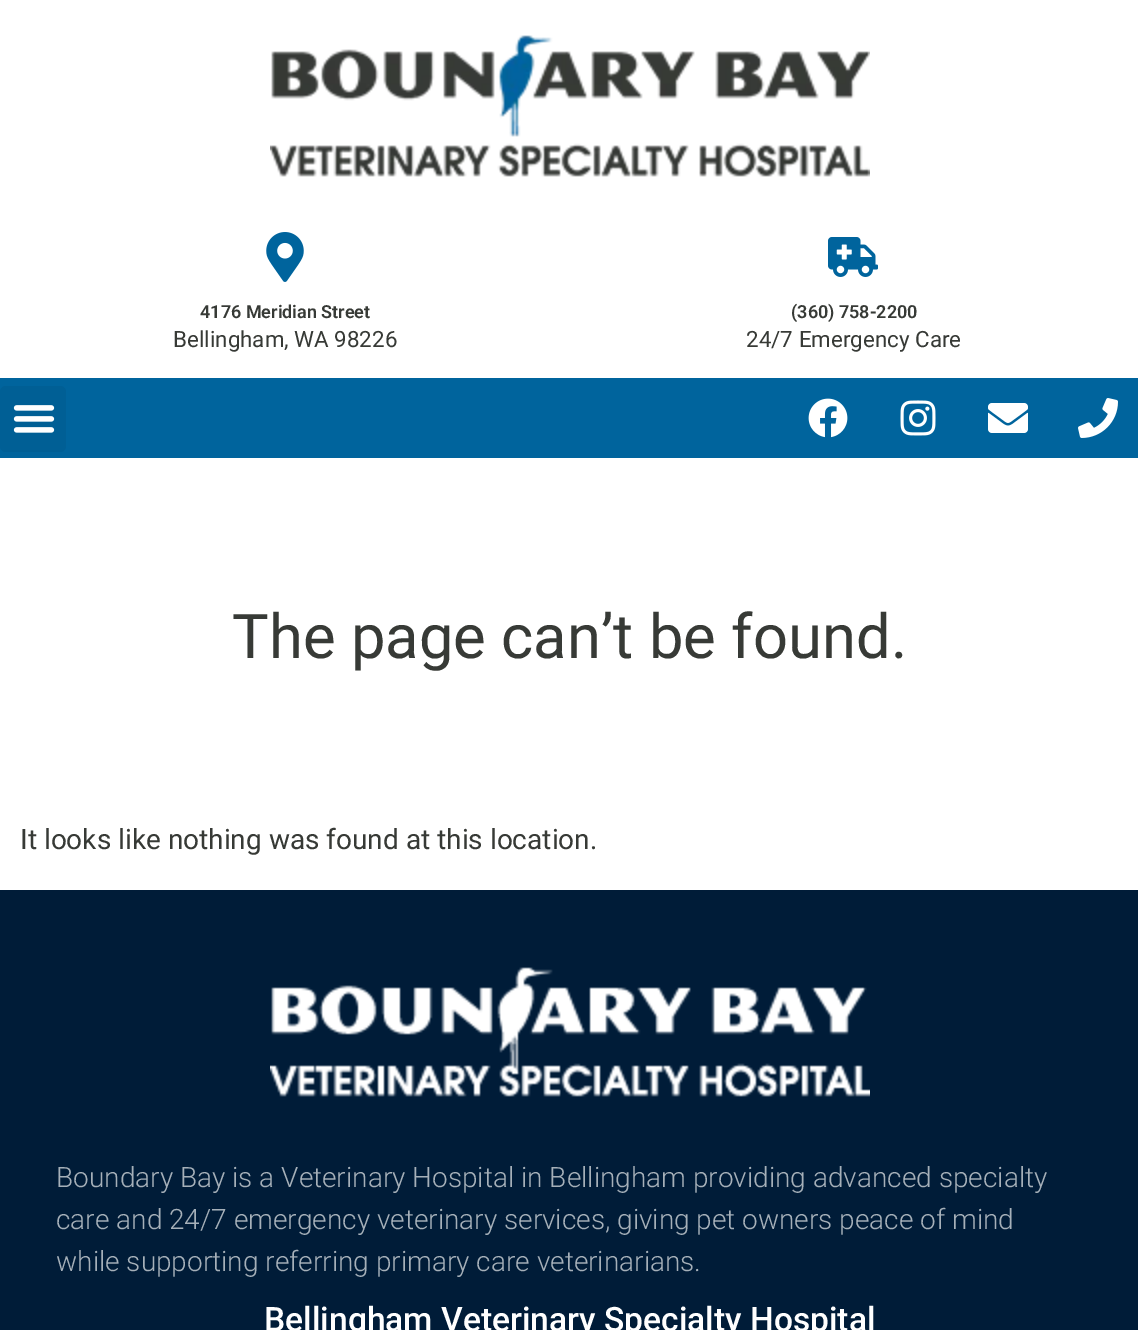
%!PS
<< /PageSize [1138 1330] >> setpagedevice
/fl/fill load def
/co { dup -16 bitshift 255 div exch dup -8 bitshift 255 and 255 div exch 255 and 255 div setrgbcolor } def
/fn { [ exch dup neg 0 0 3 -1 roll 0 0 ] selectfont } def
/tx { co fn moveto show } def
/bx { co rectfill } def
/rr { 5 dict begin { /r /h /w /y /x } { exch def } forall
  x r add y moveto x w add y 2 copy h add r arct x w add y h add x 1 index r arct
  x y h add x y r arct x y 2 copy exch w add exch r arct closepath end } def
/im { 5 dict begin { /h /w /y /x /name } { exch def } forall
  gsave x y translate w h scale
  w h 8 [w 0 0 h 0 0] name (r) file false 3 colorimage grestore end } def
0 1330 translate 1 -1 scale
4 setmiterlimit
0 0 1138 1330 16#FFFFFF bx
(media/1.raw) 270 35 600 142 im
(media/2.raw) 266 232 38 50 im
(media/3.raw) 828 237 50 40 im
0 378 1138 80 16#00649D bx
16#005F95 co
0 386 66 66 6 rr fl
(media/4.raw) 13 405 42 28 im
(media/5.raw) 808 398 40 40 im
(media/6.raw) 900 400 36 36 im
(media/7.raw) 988 403 40 30 im
(media/8.raw) 1078 398 40 40 im
0 890 1138 440 16#001C38 bx
(media/9.raw) 270 967 600 130 im
(4176 Meridian Street) 200 318 /Roboto-SemiBold 18 16#373A36 tx
(Bellingham, WA 98226) 173 347 /Roboto-Regular 22.4 16#373A36 tx
(\(360\) 758-2200) 791 318 /Roboto-SemiBold 18 16#373A36 tx
(24/7 Emergency Care) 746 347 /Roboto-Regular 22.4 16#373A36 tx
(The page can’t be found.) 232 658 /Roboto-Regular 61.6 16#373A36 tx
(It looks like nothing was found at this location.) 20 849 /Roboto-Regular 28 16#373A36 tx
(Boundary Bay is a Veterinary Hospital in Bellingham providing advanced specialty) 56 1187 /Roboto-Light 28 16#A6B0B9 tx
(care and 24/7 emergency veterinary services, giving pet owners peace of mind) 56 1229 /Roboto-Light 28 16#A6B0B9 tx
(while supporting referring primary care veterinarians.) 56 1271 /Roboto-Light 28 16#A6B0B9 tx
(Bellingham Veterinary Specialty Hospital) 264 1331 /Roboto-Medium 33.6 16#FFFFFF tx
showpage
